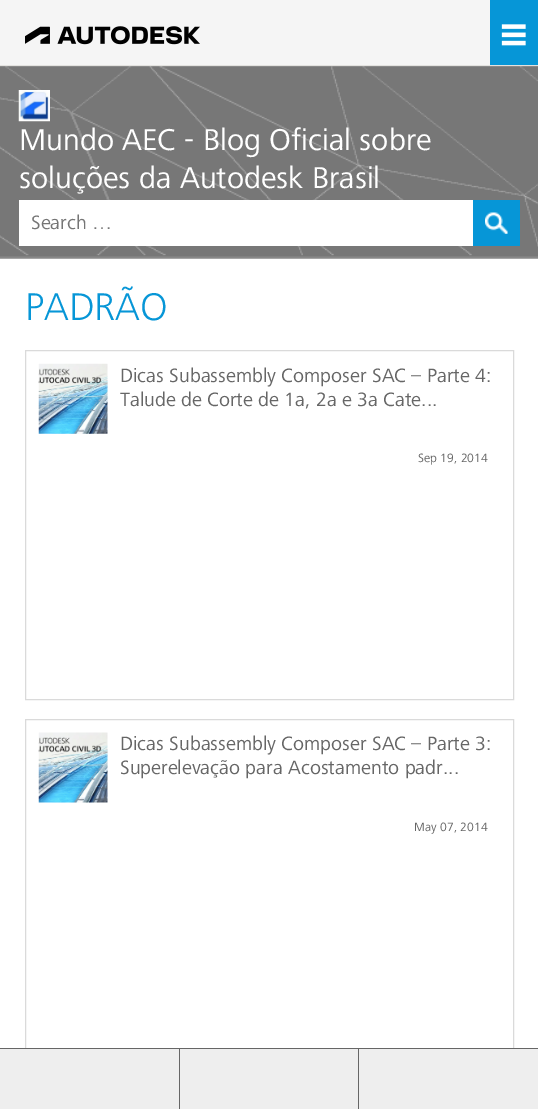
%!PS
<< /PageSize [538 1109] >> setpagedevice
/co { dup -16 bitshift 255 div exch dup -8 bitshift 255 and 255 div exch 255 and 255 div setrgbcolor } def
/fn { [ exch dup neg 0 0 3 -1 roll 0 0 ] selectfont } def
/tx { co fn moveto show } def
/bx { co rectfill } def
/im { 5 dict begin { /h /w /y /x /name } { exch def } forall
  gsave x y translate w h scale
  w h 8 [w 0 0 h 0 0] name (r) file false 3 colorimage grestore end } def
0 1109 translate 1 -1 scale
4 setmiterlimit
0 0 538 1109 16#FFFFFF bx
0 0 490 65 16#F5F5F5 bx
0 65 538 1 16#E3E2DF bx
(media/1.raw) 25 26 175 19 im
490 0 48 65 16#0696D7 bx
(media/2.raw) 501 24 25 22 im
(media/3.raw) 0 66 538 193 im
(media/4.raw) 18 90 32 32 im
19 200 454 46 16#FFFFFF bx
473 200 47 46 16#0696D7 bx
(media/5.raw) 485 212 23 22 im
16#DADADA co
25.5 350.5 488 349 rectstroke
(media/6.raw) 38 363 70 71 im
25.5 719.5 488 349 rectstroke
(media/7.raw) 38 732 70 71 im
0 1049 538 60 16#EEEEEE bx
0 1048 538 1 16#666666 bx
179 1049 1 60 16#666666 bx
358 1049 1 60 16#666666 bx
(Mundo AEC - Blog Oficial sobre) 19 150 /Frutiger-Regular 31.25 16#FFFFFF tx
(soluções da Autodesk Brasil) 19 188 /Frutiger-Regular 31.25 16#FFFFFF tx
(Search …) 31 229 /Frutiger-Regular 20 16#757575 tx
(PADRÃO) 25 320 /Frutiger-Light 40 16#0696D7 tx
(Dicas Subassembly Composer SAC – Parte 4:) 120 382 /Frutiger-Regular 20 16#666666 tx
(Talude de Corte de 1a, 2a e 3a Cate...) 120 406 /Frutiger-Regular 20 16#666666 tx
(Sep 19, 2014) 418 462 /Frutiger-Regular 12.5 16#666666 tx
(Dicas Subassembly Composer SAC – Parte 3:) 120 750 /Frutiger-Regular 20 16#666666 tx
(Superelevação para Acostamento padr...) 120 774 /Frutiger-Regular 20 16#666666 tx
(May 07, 2014) 414 831 /Frutiger-Regular 12.5 16#666666 tx
showpage
